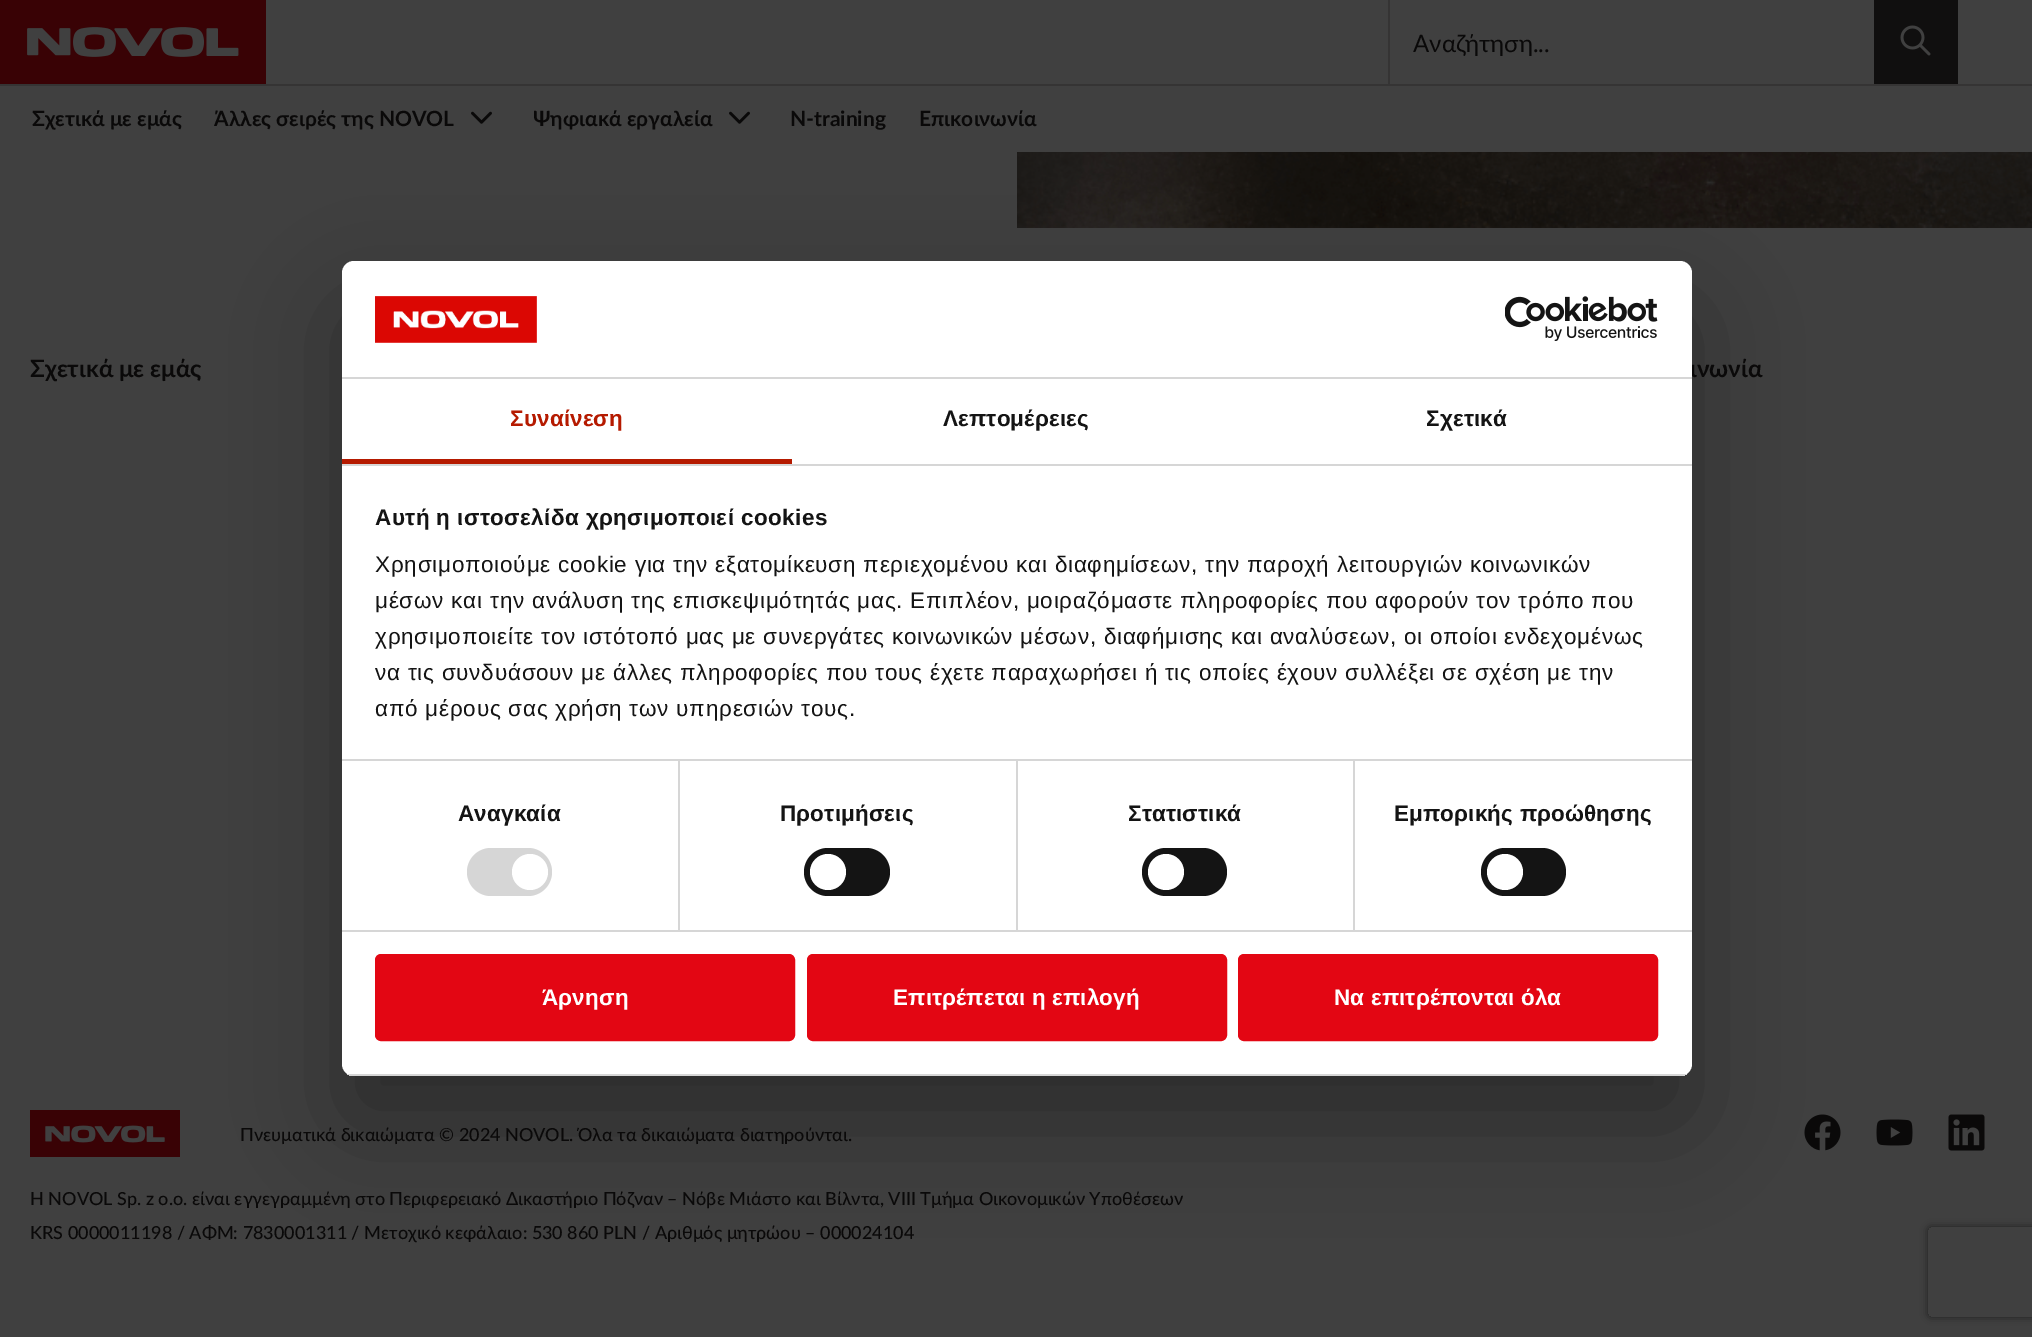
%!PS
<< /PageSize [2032 1337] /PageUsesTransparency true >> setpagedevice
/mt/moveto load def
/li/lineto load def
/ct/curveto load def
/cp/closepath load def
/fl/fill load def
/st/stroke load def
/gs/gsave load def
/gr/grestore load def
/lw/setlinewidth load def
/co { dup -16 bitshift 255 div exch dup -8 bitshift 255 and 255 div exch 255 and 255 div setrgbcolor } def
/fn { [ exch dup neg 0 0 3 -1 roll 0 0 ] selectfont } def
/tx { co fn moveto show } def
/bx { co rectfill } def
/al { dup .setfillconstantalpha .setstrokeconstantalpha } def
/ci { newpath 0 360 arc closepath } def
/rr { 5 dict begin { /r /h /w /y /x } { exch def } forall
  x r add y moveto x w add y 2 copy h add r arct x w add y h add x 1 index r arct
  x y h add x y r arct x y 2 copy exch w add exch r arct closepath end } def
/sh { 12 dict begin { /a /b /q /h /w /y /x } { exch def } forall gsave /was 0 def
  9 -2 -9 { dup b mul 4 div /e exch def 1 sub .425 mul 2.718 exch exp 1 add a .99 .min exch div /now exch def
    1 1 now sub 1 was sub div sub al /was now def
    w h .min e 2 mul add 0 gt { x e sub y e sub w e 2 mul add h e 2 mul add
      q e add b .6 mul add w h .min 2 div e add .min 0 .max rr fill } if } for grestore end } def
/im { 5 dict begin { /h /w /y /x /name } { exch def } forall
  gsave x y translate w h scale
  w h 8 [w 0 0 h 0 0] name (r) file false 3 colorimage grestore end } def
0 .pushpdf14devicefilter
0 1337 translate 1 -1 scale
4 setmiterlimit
0 0 2032 1337 16#404040 bx
(media/1.raw) 0 0 266 84 im
1388 0 2 84 16#353434 bx
1874 0 84 84 16#100F0F bx
(media/2.raw) 1900 25 31 31 im
0 84 2032 2 16#353434 bx
(media/3.raw) 471 111 21 13 im
(media/3.raw) 729 111 21 13 im
(media/4.raw) 1017 152 1015 76 im
(media/5.raw) 30 1110 150 47 im
(media/6.raw) 1804 1114 37 37 im
(media/7.raw) 1876 1119 37 27 im
(media/8.raw) 1948 1114 37 37 im
16#000000 co
342 309 1350 815 12 51 .3 sh
gs
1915 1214 mt 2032 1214 li 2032 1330 li 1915 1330 li cp 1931 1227 mt 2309 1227 li 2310.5 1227 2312 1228.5 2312 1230 ct 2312 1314 li 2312 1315.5 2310.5 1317 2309 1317 ct 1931 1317 li 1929.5 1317 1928 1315.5 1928 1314 ct 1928 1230 li 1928 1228.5 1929.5 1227 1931 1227 ct cp eoclip newpath
16#202020 co
1928 1227 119 90 3 4 1 sh
gr
(Αναζήτηση...) 1413 52 /Lato-Regular 24 16#0A0909 tx
(Σχετικά με εμάς) 32 126 /Lato-Bold 21 16#0A0909 tx
(Άλλες σειρές της NOVOL) 214 126 /Lato-Bold 21 16#0A0909 tx
(Ψηφιακά εργαλεία) 533 126 /Lato-Bold 21 16#0A0909 tx
(N-training) 790 126 /Lato-Bold 21 16#0A0909 tx
(Επικοινωνία) 919 126 /Lato-Bold 21 16#0A0909 tx
(Σχετικά με εμάς) 30 377 /Lato-Bold 24 16#0A0909 tx
(ινωνία) 1690 377 /Lato-Bold 24 16#0A0909 tx
(Πνευματικά δικαιώματα © 2024 NOVOL. Όλα τα δικαιώματα διατηρούνται.) 240 1141 /Lato-Medium 18 16#0A0909 tx
(Η NOVOL Sp. z o.o. είναι εγγεγραμμένη στο Περιφερειακό Δικαστήριο Πόζναν – Νόβε Μιάστο και Βίλντα, VIII Τμήμα Οικονομικών Υποθέσεων) 30 1205 /Lato-Medium 18 16#0A0909 tx
(KRS 0000011198 / ΑΦΜ: 7830001311 / Μετοχικό κεφάλαιο: 530 860 PLN / Αριθμός μητρώου – 000024104) 30 1239 /Lato-Medium 18 16#0A0909 tx
16#FFFFFF co
342 261 1350 815 12 rr fl
342 377 1350 2 16#D6D6D6 bx
(media/9.raw) 375 296 162 47 im
(media/10.raw) 1505 296 153 45 im
342 464 1350 2 16#D6D6D6 bx
342 459 450 5 16#B51A00 bx
/LiberationSans-Bold 22.5 fn
510 426 mt .15 0 (Συναίνεση) ashow
16#141414 co
943 426 mt .15 0 (Λεπτομέρειες) ashow
1426 426 mt .15 0 (Σχετικά) ashow
342 759 1350 2 16#D6D6D6 bx
16#141414 co
375 525 mt .4 0 (Αυτή η ιστοσελίδα χρησιμοποιεί cookies) ashow
/LiberationSans-Regular 22.5 fn
375 572 mt .75 0 (Χρησιμοποιούμε cookie για την εξατομίκευση περιεχομένου και διαφημίσεων, την παροχή λειτουργιών κοινωνικών) ashow
375 608 mt .75 0 (μέσων και την ανάλυση της επισκεψιμότητάς μας. Επιπλέον, μοιραζόμαστε πληροφορίες που αφορούν τον τρόπο που) ashow
375 644 mt .75 0 (χρησιμοποιείτε τον ιστότοπό μας με συνεργάτες κοινωνικών μέσων, διαφήμισης και αναλύσεων, οι οποίοι ενδεχομένως) ashow
375 680 mt .75 0 (να τις συνδυάσουν με άλλες πληροφορίες που τους έχετε παραχωρήσει ή τις οποίες έχουν συλλέξει σε σχέση με την) ashow
375 716 mt .75 0 (από μέρους σας χρήση των υπηρεσιών τους.) ashow
342 930 1350 2 16#D6D6D6 bx
678 761 2 169 16#D6D6D6 bx
/LiberationSans-Bold 22.5 fn
16#141414 co
458 821 mt .15 0 (Αναγκαία) ashow
16#D6D6D6 co
467 848 85 48 24 rr fl
16#FFFFFF co
530 872 18 ci fl
1016 761 2 169 16#D6D6D6 bx
16#141414 co
780 821 mt .15 0 (Προτιμήσεις) ashow
804 848 86 48 24 rr fl
16#FFFFFF co
828 872 18 ci fl
1353 761 2 169 16#D6D6D6 bx
16#141414 co
1128 821 mt .15 0 (Στατιστικά) ashow
1142 848 85 48 24 rr fl
16#FFFFFF co
1166 872 18 ci fl
16#141414 co
1394 821 mt .15 0 (Εμπορικής προώθησης) ashow
1481 848 85 48 24 rr fl
16#FFFFFF co
1505 872 18 ci fl
gs
342 261 1350 815 12 rr clip newpath
342 1074 1350 2 16#D6D6D6 bx
gr
16#E30613 co
376.5 955.5 417 84 4.5 rr gs fl gr
3 lw
st
16#FFFFFF co
542 1005 mt .15 0 (Άρνηση) ashow
16#E30613 co
808.5 955.5 417 84 4.5 rr gs fl gr
st
16#FFFFFF co
893 1005 mt .15 0 (Επιτρέπεται η επιλογή) ashow
16#E30613 co
1239.5 955.5 417 84 4.5 rr gs fl gr
st
16#FFFFFF co
1334 1005 mt .15 0 (Να επιτρέπονται όλα) ashow
.poppdf14devicefilter showpage
